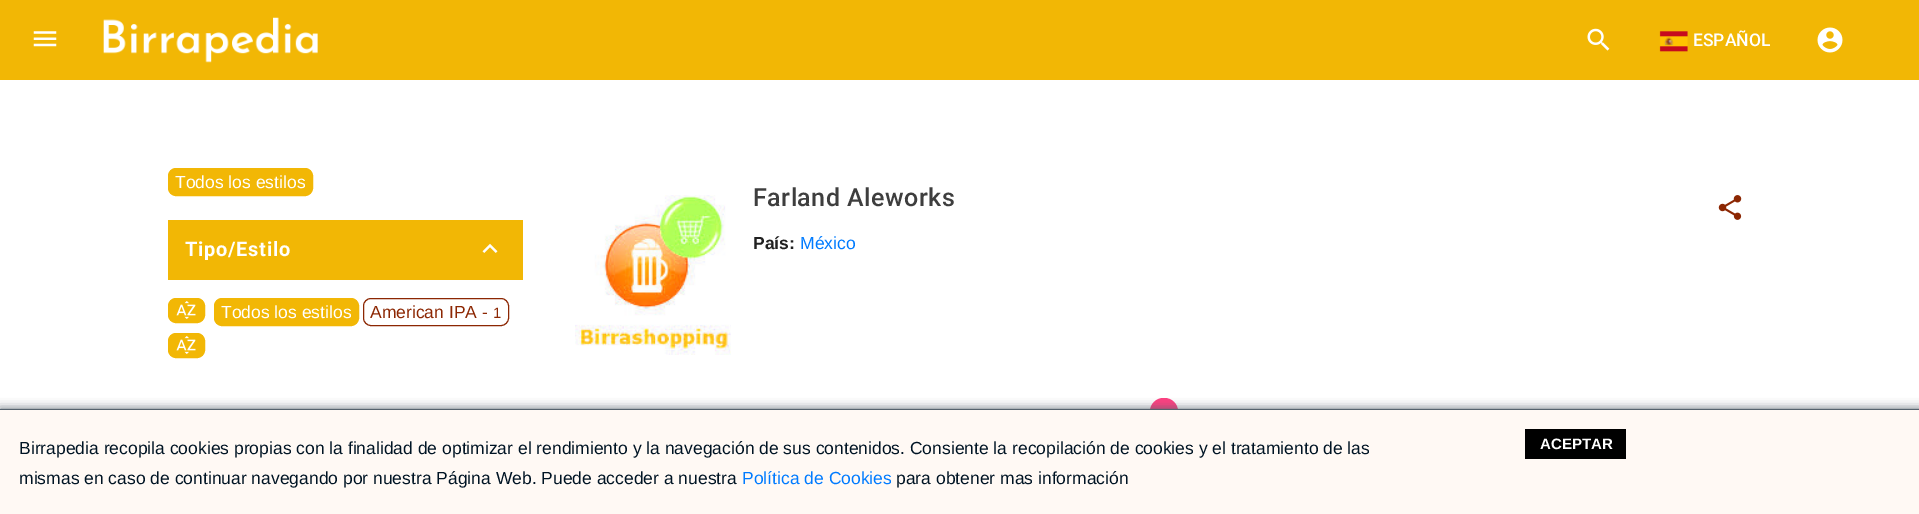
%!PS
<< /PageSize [1919 514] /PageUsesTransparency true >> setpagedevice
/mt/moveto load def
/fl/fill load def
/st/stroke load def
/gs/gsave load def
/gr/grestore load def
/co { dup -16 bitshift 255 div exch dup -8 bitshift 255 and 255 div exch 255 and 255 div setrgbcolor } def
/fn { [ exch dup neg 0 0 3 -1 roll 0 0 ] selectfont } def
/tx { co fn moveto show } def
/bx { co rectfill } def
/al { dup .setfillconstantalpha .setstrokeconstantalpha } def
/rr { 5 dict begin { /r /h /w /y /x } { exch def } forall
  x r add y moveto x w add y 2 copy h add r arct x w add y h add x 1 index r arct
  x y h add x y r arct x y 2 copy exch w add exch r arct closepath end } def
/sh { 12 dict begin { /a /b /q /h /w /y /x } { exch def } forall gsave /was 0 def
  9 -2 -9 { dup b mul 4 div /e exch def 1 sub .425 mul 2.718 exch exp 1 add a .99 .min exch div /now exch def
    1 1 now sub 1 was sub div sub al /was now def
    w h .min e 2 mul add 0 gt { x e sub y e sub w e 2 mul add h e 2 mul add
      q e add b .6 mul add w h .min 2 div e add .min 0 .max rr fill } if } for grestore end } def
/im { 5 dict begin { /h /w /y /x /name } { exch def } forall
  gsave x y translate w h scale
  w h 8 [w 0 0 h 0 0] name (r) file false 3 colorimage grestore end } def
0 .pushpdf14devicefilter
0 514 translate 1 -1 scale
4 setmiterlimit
0 0 1919 514 16#FFFFFF bx
0 0 1919 80 16#F2B705 bx
(media/1.raw) 33 31 24 16 im
(media/2.raw) 103 17 215 46 im
(media/3.raw) 1587 28 23 23 im
(media/4.raw) 1659 31 29 21 im
(media/5.raw) 1817 27 26 26 im
168.5 168.5 144 27 7.5 rr gs fl gr
st
168 220 355 60 16#F2B705 bx
(media/6.raw) 482 243 16 10 im
168.5 298.5 36 24 7.5 rr gs fl gr
st
(media/7.raw) 176 301 20 18 im
214.5 298.5 144 27 7.5 rr gs fl gr
st
16#8C2703 co
363.5 298.5 145 27 7.5 rr st
16#F2B705 co
168.5 333.5 36 24 7.5 rr gs fl gr
st
(media/7.raw) 176 336 20 18 im
(media/8.raw) 575 195 156 160 im
(media/9.raw) 1718 195 24 25 im
16#FF4081 co
1150 398 28 27 13.5 rr fl
16#56636E co
0 409 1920 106 0 5 1 sh
0 410 1919 104 16#FFF9F4 bx
0 409 1919 1 16#56636E bx
1525 429 101 30 16#000000 bx
(ESPAÑOL) 1693 46 /Roboto-Medium 17.5 16#FFFFFF tx
(Todos los estilos) 175 188 /LiberationSans-Regular 17.5 16#FFFFFF tx
/Roboto-Bold 20 fn
185 256 mt .75 0 (Tipo/Estilo) ashow
(Todos los estilos) 221 318 /LiberationSans-Regular 17.5 16#FFFFFF tx
(American IPA -) 370 318 /LiberationSans-Regular 17.5 16#8C2703 tx
(1) 493 318 /LiberationSans-Regular 15 16#8C2703 tx
/Roboto-Medium 25 fn
16#3E3E3E co
753 206 mt .5 0 (Farland Aleworks) ashow
(País:) 753 249 /LiberationSans-Bold 17.5 16#212121 tx
(México) 800 249 /LiberationSans-Regular 17.5 16#007BFF tx
(Birrapedia recopila cookies propias con la finalidad de optimizar el rendimiento y la navegación de sus contenidos. Consiente la recopilación de cookies y el tratamiento de las) 19 454 /LiberationSans-Regular 17.5 16#001424 tx
(mismas en caso de continuar navegando por nuestra Página Web. Puede acceder a nuestra) 19 484 /LiberationSans-Regular 17.5 16#001424 tx
(Política de Cookies) 742 484 /LiberationSans-Regular 17.5 16#007BFF tx
(para obtener mas información) 896 484 /LiberationSans-Regular 17.5 16#001424 tx
(ACEPTAR) 1540 449 /LiberationSans-Bold 15 16#FFFFFF tx
.poppdf14devicefilter showpage
